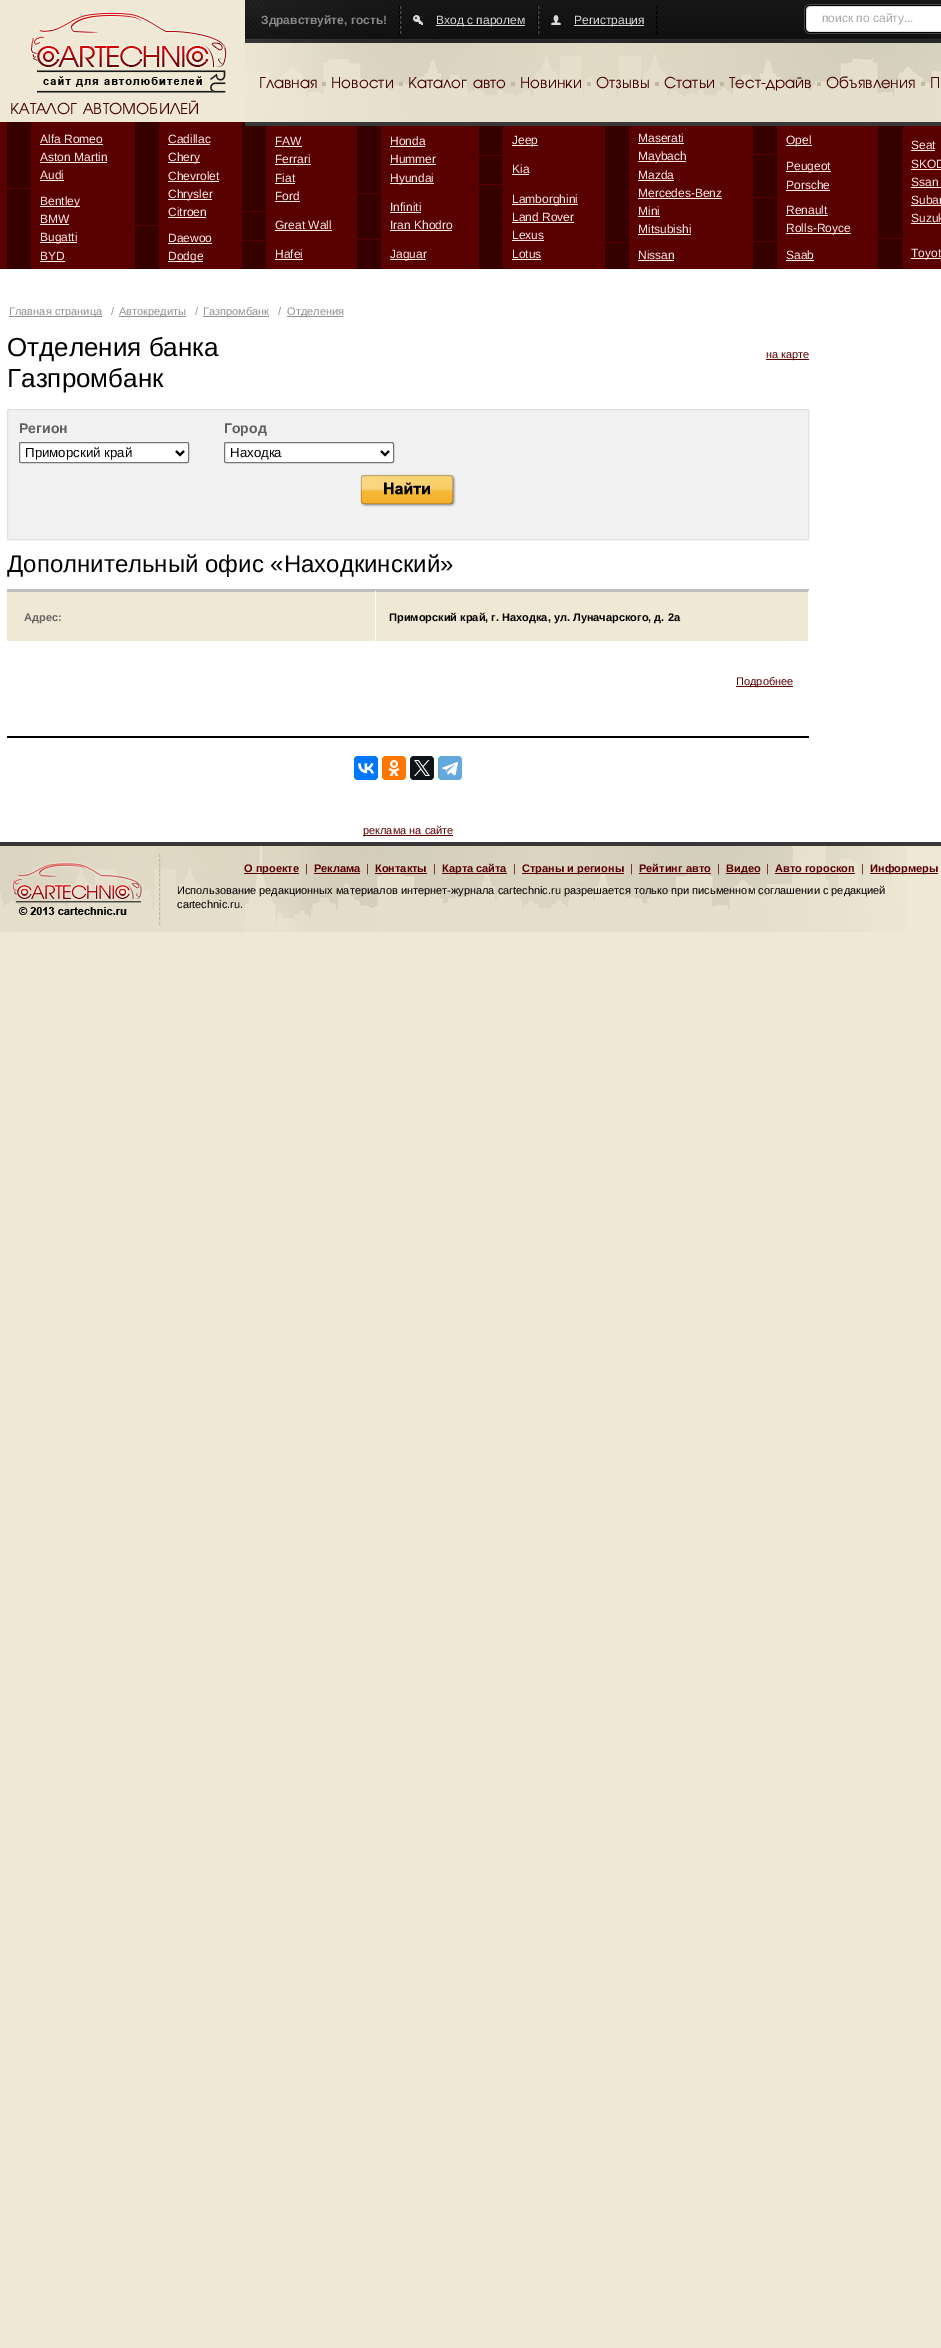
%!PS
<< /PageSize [941 2348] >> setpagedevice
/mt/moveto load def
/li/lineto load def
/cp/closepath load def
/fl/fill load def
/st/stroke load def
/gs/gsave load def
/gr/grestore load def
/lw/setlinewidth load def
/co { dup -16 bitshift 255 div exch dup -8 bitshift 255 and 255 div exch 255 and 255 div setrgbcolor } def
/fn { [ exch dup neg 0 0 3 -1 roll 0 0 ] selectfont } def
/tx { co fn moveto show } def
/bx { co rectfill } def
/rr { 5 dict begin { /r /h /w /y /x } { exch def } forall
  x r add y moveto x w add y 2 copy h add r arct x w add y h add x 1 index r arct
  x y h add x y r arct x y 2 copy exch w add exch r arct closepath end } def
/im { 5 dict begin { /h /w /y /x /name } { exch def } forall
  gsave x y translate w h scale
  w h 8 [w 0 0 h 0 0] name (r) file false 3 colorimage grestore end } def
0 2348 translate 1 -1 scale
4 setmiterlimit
0 0 941 2348 16#EEE8D4 bx
(media/1.raw) 245 0 696 122 im
16#000000 co
[3 2] 0 setdash
399.5 6 mt 399.5 34 li st
537.5 6 mt 537.5 34 li st
16#4E4E4D co
400.5 6 mt 400.5 34 li st
(media/2.raw) 413 15 10 10 im
436 25 89 1 16#D8D8D8 bx
16#000000 co
656.5 6 mt 656.5 34 li st
16#4E4E4D co
538.5 6 mt 538.5 34 li st
(media/3.raw) 551 15 10 10 im
574 25 70 1 16#D8D8D8 bx
(media/4.raw) 804 4 137 30 im
322 82 4 4 16#C0B9A0 bx
399 82 4 4 16#C0B9A0 bx
511 82 4 4 16#C0B9A0 bx
587 82 4 4 16#C0B9A0 bx
655 82 4 4 16#C0B9A0 bx
720 82 4 4 16#C0B9A0 bx
817 82 4 4 16#C0B9A0 bx
921 82 4 4 16#C0B9A0 bx
(media/5.raw) 29 11 199 82 im
0 122 941 147 16#590000 bx
242 122 24 147 16#370000 bx
245 122 696 4 16#373737 bx
7 122 24 147 16#370000 bx
40 144 63 1 16#FCE9E9 bx
40 162 67 1 16#FCE9E9 bx
40 180 24 1 16#FCE9E9 bx
7 188 24 1 16#590000 bx
40 206 40 1 16#FCE9E9 bx
40 224 29 1 16#FCE9E9 bx
40 242 37 1 16#FCE9E9 bx
40 261 25 1 16#FCE9E9 bx
135 122 24 147 16#370000 bx
168 144 42 1 16#FCE9E9 bx
168 162 32 1 16#FCE9E9 bx
168 181 51 1 16#FCE9E9 bx
168 199 44 1 16#FCE9E9 bx
168 217 38 1 16#FCE9E9 bx
135 225 24 1 16#590000 bx
168 243 44 1 16#FCE9E9 bx
168 261 35 1 16#FCE9E9 bx
275 146 27 1 16#FCE9E9 bx
275 164 36 1 16#FCE9E9 bx
275 183 20 1 16#FCE9E9 bx
275 201 25 1 16#FCE9E9 bx
242 211 24 1 16#590000 bx
275 230 57 1 16#FCE9E9 bx
242 240 24 1 16#590000 bx
275 259 28 1 16#FCE9E9 bx
357 126 24 143 16#370000 bx
390 146 35 1 16#FCE9E9 bx
390 164 46 1 16#FCE9E9 bx
390 183 44 1 16#FCE9E9 bx
357 193 24 1 16#590000 bx
390 212 31 1 16#FCE9E9 bx
390 230 62 1 16#FCE9E9 bx
357 239 24 1 16#590000 bx
390 259 36 1 16#FCE9E9 bx
479 126 24 143 16#370000 bx
512 145 26 1 16#FCE9E9 bx
479 155 24 1 16#590000 bx
512 174 17 1 16#FCE9E9 bx
479 184 24 1 16#590000 bx
512 204 66 1 16#FCE9E9 bx
512 222 62 1 16#FCE9E9 bx
512 240 32 1 16#FCE9E9 bx
512 259 29 1 16#FCE9E9 bx
605 126 24 143 16#370000 bx
638 143 46 1 16#FCE9E9 bx
638 161 48 1 16#FCE9E9 bx
638 180 36 1 16#FCE9E9 bx
638 198 84 1 16#FCE9E9 bx
638 216 22 1 16#FCE9E9 bx
638 234 53 1 16#FCE9E9 bx
605 242 24 1 16#590000 bx
638 260 36 1 16#FCE9E9 bx
753 126 24 143 16#370000 bx
786 145 26 1 16#FCE9E9 bx
753 154 24 1 16#590000 bx
786 171 45 1 16#FCE9E9 bx
786 190 44 1 16#FCE9E9 bx
753 197 24 1 16#590000 bx
786 215 42 1 16#FCE9E9 bx
786 233 65 1 16#FCE9E9 bx
753 241 24 1 16#590000 bx
786 260 28 1 16#FCE9E9 bx
878 126 25 143 16#370000 bx
911 150 24 1 16#FCE9E9 bx
911 169 30 1 16#FCE9E9 bx
911 187 30 1 16#FCE9E9 bx
911 205 30 1 16#FCE9E9 bx
911 223 30 1 16#FCE9E9 bx
878 238 24 1 16#590000 bx
911 258 30 1 16#FCE9E9 bx
0 269 941 573 16#FFFFFF bx
9 316 93 1 16#919191 bx
119 316 67 1 16#919191 bx
203 316 66 1 16#919191 bx
287 316 56 1 16#919191 bx
766 359 43 1 16#590000 bx
16#F1F1F1 co
7.5 409.5 mt 808.5 409.5 li 808.5 539.5 li 7.5 539.5 li cp gs fl gr
16#DFDFDF co
[] 0 setdash
st
7 409 1 1 16#ECECEC bx
808 409 1 1 16#ECECEC bx
16#FFFFFF co
19.5 442.5 169 20 1.5 rr gs fl gr
16#767676 co
st
16#000000 co
2 lw
176 451 mt 180 455 li 184 451 li st
16#FFFFFF co
224.5 442.5 169 20 1.5 rr gs fl gr
16#767676 co
1 lw
st
16#000000 co
2 lw
381 451 mt 385 455 li 389 451 li st
(media/6.raw) 360 474 96 33 im
7 539 1 1 16#ECECEC bx
808 539 1 1 16#ECECEC bx
7 736 802 2 16#000000 bx
7 589 802 2 16#BFBFBF bx
7 592 368 49 16#EEE8D4 bx
7 591 802 1 16#BFBFBF bx
375 591 1 1 16#FFFFFF bx
376 592 432 49 16#EEE8D4 bx
808 591 1 1 16#FFFFFF bx
736 686 57 1 16#590000 bx
16#0077FF co
354 756 24 24 4 rr fl
(media/7.raw) 358 763 16 11 im
16#FF7700 co
382 756 24 24 4 rr fl
(media/8.raw) 388 760 12 16 im
16#0F1419 co
410 756 24 24 4 rr fl
(media/9.raw) 414 760 16 16 im
16#64A9DC co
438 756 24 24 4 rr fl
(media/10.raw) 442 762 16 14 im
363 835 90 1 16#590000 bx
(media/11.raw) 0 846 907 86 im
0 842 941 4 16#373737 bx
16#C0B9A0 co
1 lw
[3 1.86] 0 setdash
159.5 854 mt 159.5 925 li st
(media/12.raw) 11 861 132 54 im
244 873 55 1 16#590000 bx
314 873 46 1 16#590000 bx
375 873 52 1 16#590000 bx
442 873 65 1 16#590000 bx
522 873 102 1 16#590000 bx
639 873 72 1 16#590000 bx
726 873 34 1 16#590000 bx
775 873 80 1 16#590000 bx
870 873 68 1 16#590000 bx
(Здравствуйте, гость!) 261 24 /LiberationSans-Bold 12 16#888888 tx
(Вход с паролем) 436 24 /LiberationSans-Regular 12 16#D8D8D8 tx
(Регистрация) 574 24 /LiberationSans-Regular 12 16#D8D8D8 tx
(поиск по сайту...) 822 22 /LiberationSans-Regular 12 16#A9A9A9 tx
(Главная) 259 88 /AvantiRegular-Regular 15 16#440202 tx
(Новости) 331 88 /AvantiRegular-Regular 15 16#440202 tx
(Каталог авто) 408 88 /AvantiRegular-Regular 15 16#440202 tx
(Новинки) 520 88 /AvantiRegular-Regular 15 16#440202 tx
(Отзывы) 596 88 /AvantiRegular-Regular 15 16#440202 tx
(Статьи) 664 88 /AvantiRegular-Regular 15 16#440202 tx
(Тест-драйв) 729 88 /AvantiRegular-Regular 15 16#440202 tx
(Объявления) 826 88 /AvantiRegular-Regular 15 16#440202 tx
(П) 930 88 /AvantiRegular-Regular 15 16#440202 tx
(КАТАЛОГ АВТОМОБИЛЕЙ) 10 114 /AvantiRegular-Regular 15 16#440202 tx
(Alfa Romeo) 40 143 /LiberationSans-Regular 12 16#FCE9E9 tx
(Aston Martin) 40 161 /LiberationSans-Regular 12 16#FCE9E9 tx
(Audi) 40 179 /LiberationSans-Regular 12 16#FCE9E9 tx
(Bentley) 40 205 /LiberationSans-Regular 12 16#FCE9E9 tx
(BMW) 40 223 /LiberationSans-Regular 12 16#FCE9E9 tx
(Bugatti) 40 241 /LiberationSans-Regular 12 16#FCE9E9 tx
(BYD) 40 260 /LiberationSans-Regular 12 16#FCE9E9 tx
(Cadillac) 168 143 /LiberationSans-Regular 12 16#FCE9E9 tx
(Chery) 168 161 /LiberationSans-Regular 12 16#FCE9E9 tx
(Chevrolet) 168 180 /LiberationSans-Regular 12 16#FCE9E9 tx
(Chrysler) 168 198 /LiberationSans-Regular 12 16#FCE9E9 tx
(Citroen) 168 216 /LiberationSans-Regular 12 16#FCE9E9 tx
(Daewoo) 168 242 /LiberationSans-Regular 12 16#FCE9E9 tx
(Dodge) 168 260 /LiberationSans-Regular 12 16#FCE9E9 tx
(FAW) 275 145 /LiberationSans-Regular 12 16#FCE9E9 tx
(Ferrari) 275 163 /LiberationSans-Regular 12 16#FCE9E9 tx
(Fiat) 275 182 /LiberationSans-Regular 12 16#FCE9E9 tx
(Ford) 275 200 /LiberationSans-Regular 12 16#FCE9E9 tx
(Great Wall) 275 229 /LiberationSans-Regular 12 16#FCE9E9 tx
(Hafei) 275 258 /LiberationSans-Regular 12 16#FCE9E9 tx
(Honda) 390 145 /LiberationSans-Regular 12 16#FCE9E9 tx
(Hummer) 390 163 /LiberationSans-Regular 12 16#FCE9E9 tx
(Hyundai) 390 182 /LiberationSans-Regular 12 16#FCE9E9 tx
(Infiniti) 390 211 /LiberationSans-Regular 12 16#FCE9E9 tx
(Iran Khodro) 390 229 /LiberationSans-Regular 12 16#FCE9E9 tx
(Jaguar) 390 258 /LiberationSans-Regular 12 16#FCE9E9 tx
(Jeep) 512 144 /LiberationSans-Regular 12 16#FCE9E9 tx
(Kia) 512 173 /LiberationSans-Regular 12 16#FCE9E9 tx
(Lamborghini) 512 203 /LiberationSans-Regular 12 16#FCE9E9 tx
(Land Rover) 512 221 /LiberationSans-Regular 12 16#FCE9E9 tx
(Lexus) 512 239 /LiberationSans-Regular 12 16#FCE9E9 tx
(Lotus) 512 258 /LiberationSans-Regular 12 16#FCE9E9 tx
(Maserati) 638 142 /LiberationSans-Regular 12 16#FCE9E9 tx
(Maybach) 638 160 /LiberationSans-Regular 12 16#FCE9E9 tx
(Mazda) 638 179 /LiberationSans-Regular 12 16#FCE9E9 tx
(Mercedes-Benz) 638 197 /LiberationSans-Regular 12 16#FCE9E9 tx
(Mini) 638 215 /LiberationSans-Regular 12 16#FCE9E9 tx
(Mitsubishi) 638 233 /LiberationSans-Regular 12 16#FCE9E9 tx
(Nissan) 638 259 /LiberationSans-Regular 12 16#FCE9E9 tx
(Opel) 786 144 /LiberationSans-Regular 12 16#FCE9E9 tx
(Peugeot) 786 170 /LiberationSans-Regular 12 16#FCE9E9 tx
(Porsche) 786 189 /LiberationSans-Regular 12 16#FCE9E9 tx
(Renault) 786 214 /LiberationSans-Regular 12 16#FCE9E9 tx
(Rolls-Royce) 786 232 /LiberationSans-Regular 12 16#FCE9E9 tx
(Saab) 786 259 /LiberationSans-Regular 12 16#FCE9E9 tx
(Seat) 911 149 /LiberationSans-Regular 12 16#FCE9E9 tx
(SKOD) 911 168 /LiberationSans-Regular 12 16#FCE9E9 tx
(Ssan) 911 186 /LiberationSans-Regular 12 16#FCE9E9 tx
(Subar) 911 204 /LiberationSans-Regular 12 16#FCE9E9 tx
(Suzuk) 911 222 /LiberationSans-Regular 12 16#FCE9E9 tx
(Toyot) 911 257 /LiberationSans-Regular 12 16#FCE9E9 tx
(Главная страница) 9 315 /LiberationSans-Regular 11 16#919191 tx
(/) 111 315 /LiberationSans-Regular 11 16#919191 tx
(Автокредиты) 119 315 /LiberationSans-Regular 11 16#919191 tx
(/) 195 315 /LiberationSans-Regular 11 16#919191 tx
(Газпромбанк) 203 315 /LiberationSans-Regular 11 16#919191 tx
(/) 278 315 /LiberationSans-Regular 11 16#919191 tx
(Отделения) 287 315 /LiberationSans-Regular 11 16#919191 tx
(Отделения банка) 7 356 /LiberationSans-Regular 26 16#000000 tx
(Газпромбанк) 7 387 /LiberationSans-Regular 26 16#000000 tx
(на карте) 766 358 /LiberationSans-Regular 11 16#590000 tx
(Регион) 19 433 /LiberationSans-Bold 14 16#606060 tx
(Приморский край) 25 457 /LiberationSans-Regular 13.25 16#000000 tx
(Город) 224 433 /LiberationSans-Bold 14 16#606060 tx
(Находка) 230 457 /LiberationSans-Regular 13.25 16#000000 tx
(Дополнительный офис «Находкинский») 7 572 /LiberationSans-Regular 24 16#000000 tx
(Адрес:) 24 621 /LiberationSans-Bold 11 16#666666 tx
(Приморский край, г. Находка, ул. Луначарского, д. 2а) 389 621 /LiberationSans-Bold 11 16#000000 tx
(Подробнее) 736 685 /LiberationSans-Regular 11 16#590000 tx
(реклама на сайте) 363 834 /LiberationSans-Regular 11 16#590000 tx
(О проекте) 244 872 /LiberationSans-Bold 11 16#590000 tx
(|) 305 872 /LiberationSans-Regular 11 16#590000 tx
(Реклама) 314 872 /LiberationSans-Bold 11 16#590000 tx
(|) 366 872 /LiberationSans-Regular 11 16#590000 tx
(Контакты) 375 872 /LiberationSans-Bold 11 16#590000 tx
(|) 433 872 /LiberationSans-Regular 11 16#590000 tx
(Карта сайта) 442 872 /LiberationSans-Bold 11 16#590000 tx
(|) 513 872 /LiberationSans-Regular 11 16#590000 tx
(Страны и регионы) 522 872 /LiberationSans-Bold 11 16#590000 tx
(|) 630 872 /LiberationSans-Regular 11 16#590000 tx
(Рейтинг авто) 639 872 /LiberationSans-Bold 11 16#590000 tx
(|) 717 872 /LiberationSans-Regular 11 16#590000 tx
(Видео) 726 872 /LiberationSans-Bold 11 16#590000 tx
(|) 766 872 /LiberationSans-Regular 11 16#590000 tx
(Авто гороскоп) 775 872 /LiberationSans-Bold 11 16#590000 tx
(|) 861 872 /LiberationSans-Regular 11 16#590000 tx
(Информеры) 870 872 /LiberationSans-Bold 11 16#590000 tx
(Использование редакционных материалов интернет-журнала cartechnic.ru разрешается только при письменном соглашении с редакцией) 177 894 /LiberationSans-Regular 11 16#000000 tx
(cartechnic.ru.) 177 908 /LiberationSans-Regular 11 16#000000 tx
showpage
